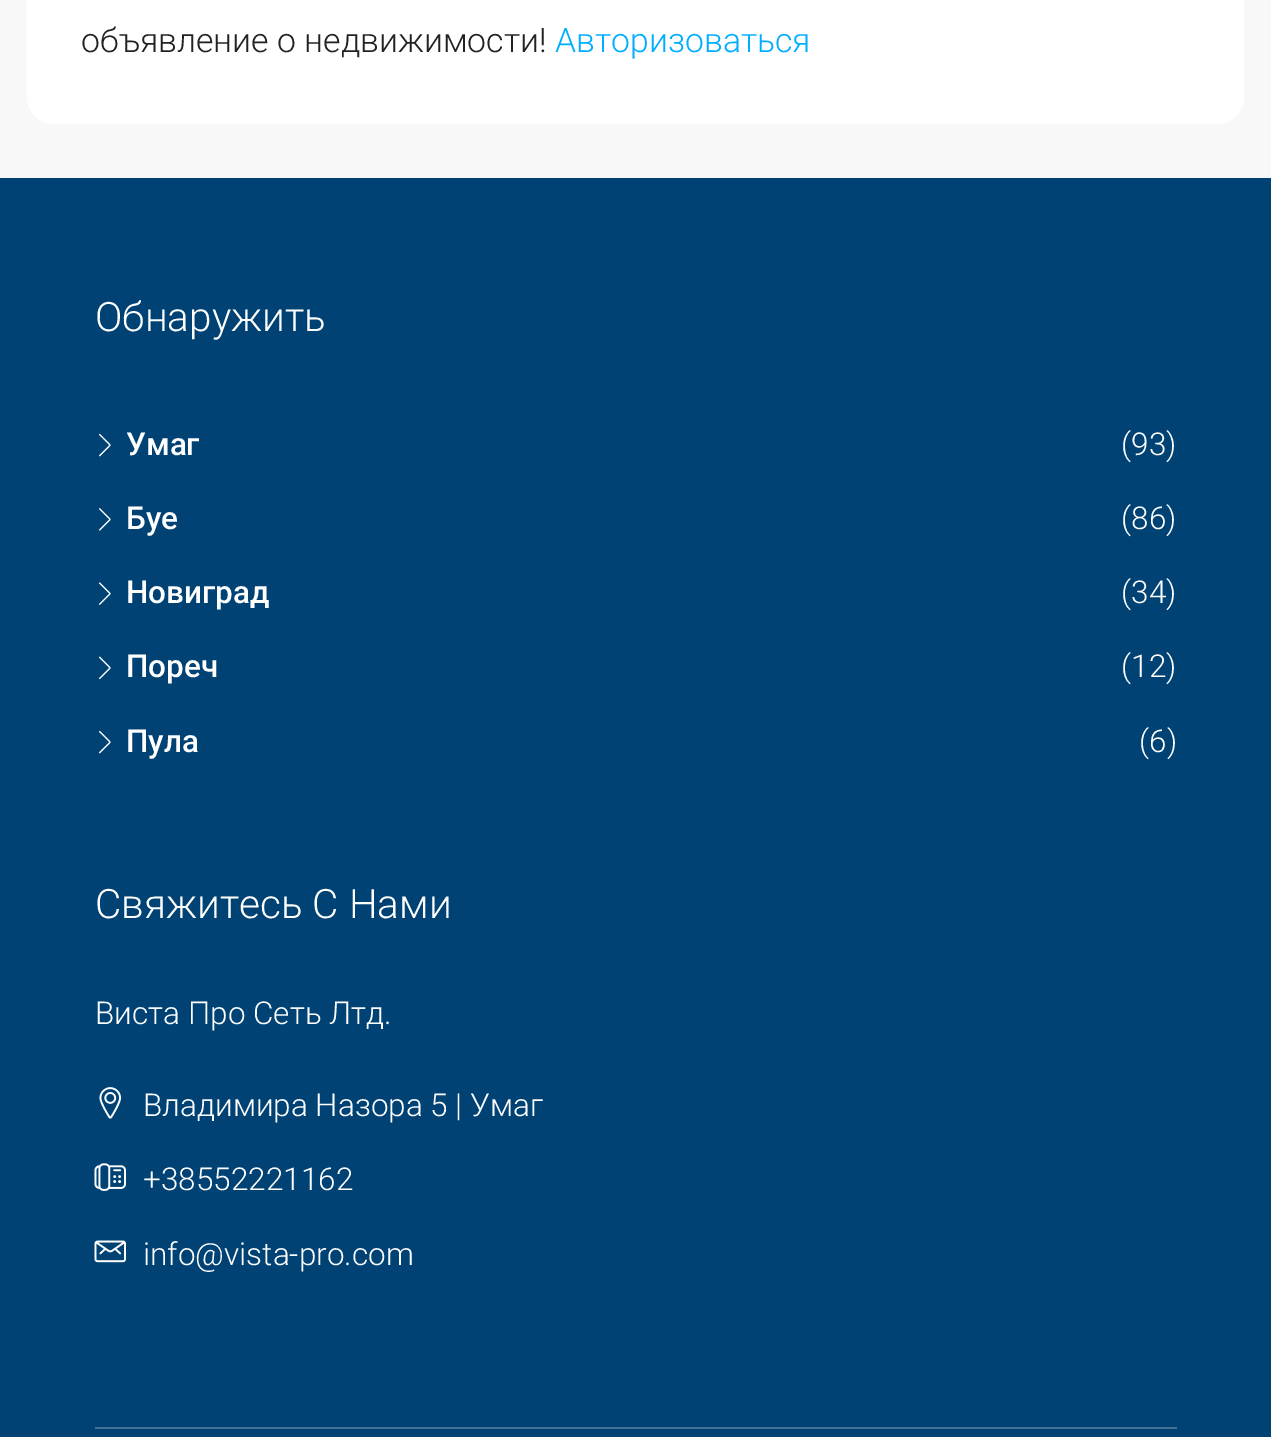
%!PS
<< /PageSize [1271 1437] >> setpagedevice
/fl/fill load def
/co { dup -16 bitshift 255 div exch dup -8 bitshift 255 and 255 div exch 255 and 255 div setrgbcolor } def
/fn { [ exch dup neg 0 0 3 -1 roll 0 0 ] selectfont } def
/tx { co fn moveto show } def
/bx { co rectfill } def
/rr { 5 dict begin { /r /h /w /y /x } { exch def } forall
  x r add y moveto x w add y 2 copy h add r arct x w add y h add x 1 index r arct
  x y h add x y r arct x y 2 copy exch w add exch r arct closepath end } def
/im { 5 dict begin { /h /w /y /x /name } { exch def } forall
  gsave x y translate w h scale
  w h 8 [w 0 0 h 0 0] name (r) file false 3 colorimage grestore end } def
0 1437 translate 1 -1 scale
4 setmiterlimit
0 0 1271 1437 16#F8F8F8 bx
16#FFFFFF co
27 -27 1217 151 27 rr fl
0 178 1271 1259 16#004274 bx
(media/1.raw) 99 433 12 24 im
(media/2.raw) 99 508 12 23 im
(media/3.raw) 99 582 12 23 im
(media/4.raw) 99 656 12 24 im
(media/1.raw) 99 730 12 24 im
(media/5.raw) 99 1087 23 32 im
(media/6.raw) 94 1163 32 28 im
(media/7.raw) 94 1240 32 23 im
95 1427 1082 2 16#407197 bx
(объявление о недвижимости!) 81 52 /Roboto-Light 33.75 16#222222 tx
(Авторизоваться) 555 52 /Roboto-Light 33.75 16#00AEFF tx
(Обнаружить) 95 331 /Roboto-Light 40.5 16#FFFFFF tx
(Умаг) 126 455 /Roboto-Medium 31.5 16#FFFFFF tx
(\(93\)) 1121 455 /Roboto-Light 31.5 16#FFFFFF tx
(Буе) 126 529 /Roboto-Medium 31.5 16#FFFFFF tx
(\(86\)) 1121 529 /Roboto-Light 31.5 16#FFFFFF tx
(Новиград) 126 603 /Roboto-Medium 31.5 16#FFFFFF tx
(\(34\)) 1121 603 /Roboto-Light 31.5 16#FFFFFF tx
(Пореч) 126 677 /Roboto-Medium 31.5 16#FFFFFF tx
(\(12\)) 1121 677 /Roboto-Light 31.5 16#FFFFFF tx
(Пула) 126 752 /Roboto-Medium 31.5 16#FFFFFF tx
(\(6\)) 1139 752 /Roboto-Light 31.5 16#FFFFFF tx
(Свяжитесь С Нами) 95 918 /Roboto-Light 40.5 16#FFFFFF tx
(Виста Про Сеть Лтд.) 95 1024 /Roboto-Light 31.5 16#FFFFFF tx
(Владимира Назора 5 | Умаг) 143 1116 /Roboto-Light 31.5 16#FFFFFF tx
(+38552221162) 143 1190 /Roboto-Light 31.5 16#FFFFFF tx
(info@vista-pro.com) 143 1265 /Roboto-Light 31.5 16#FFFFFF tx
showpage
